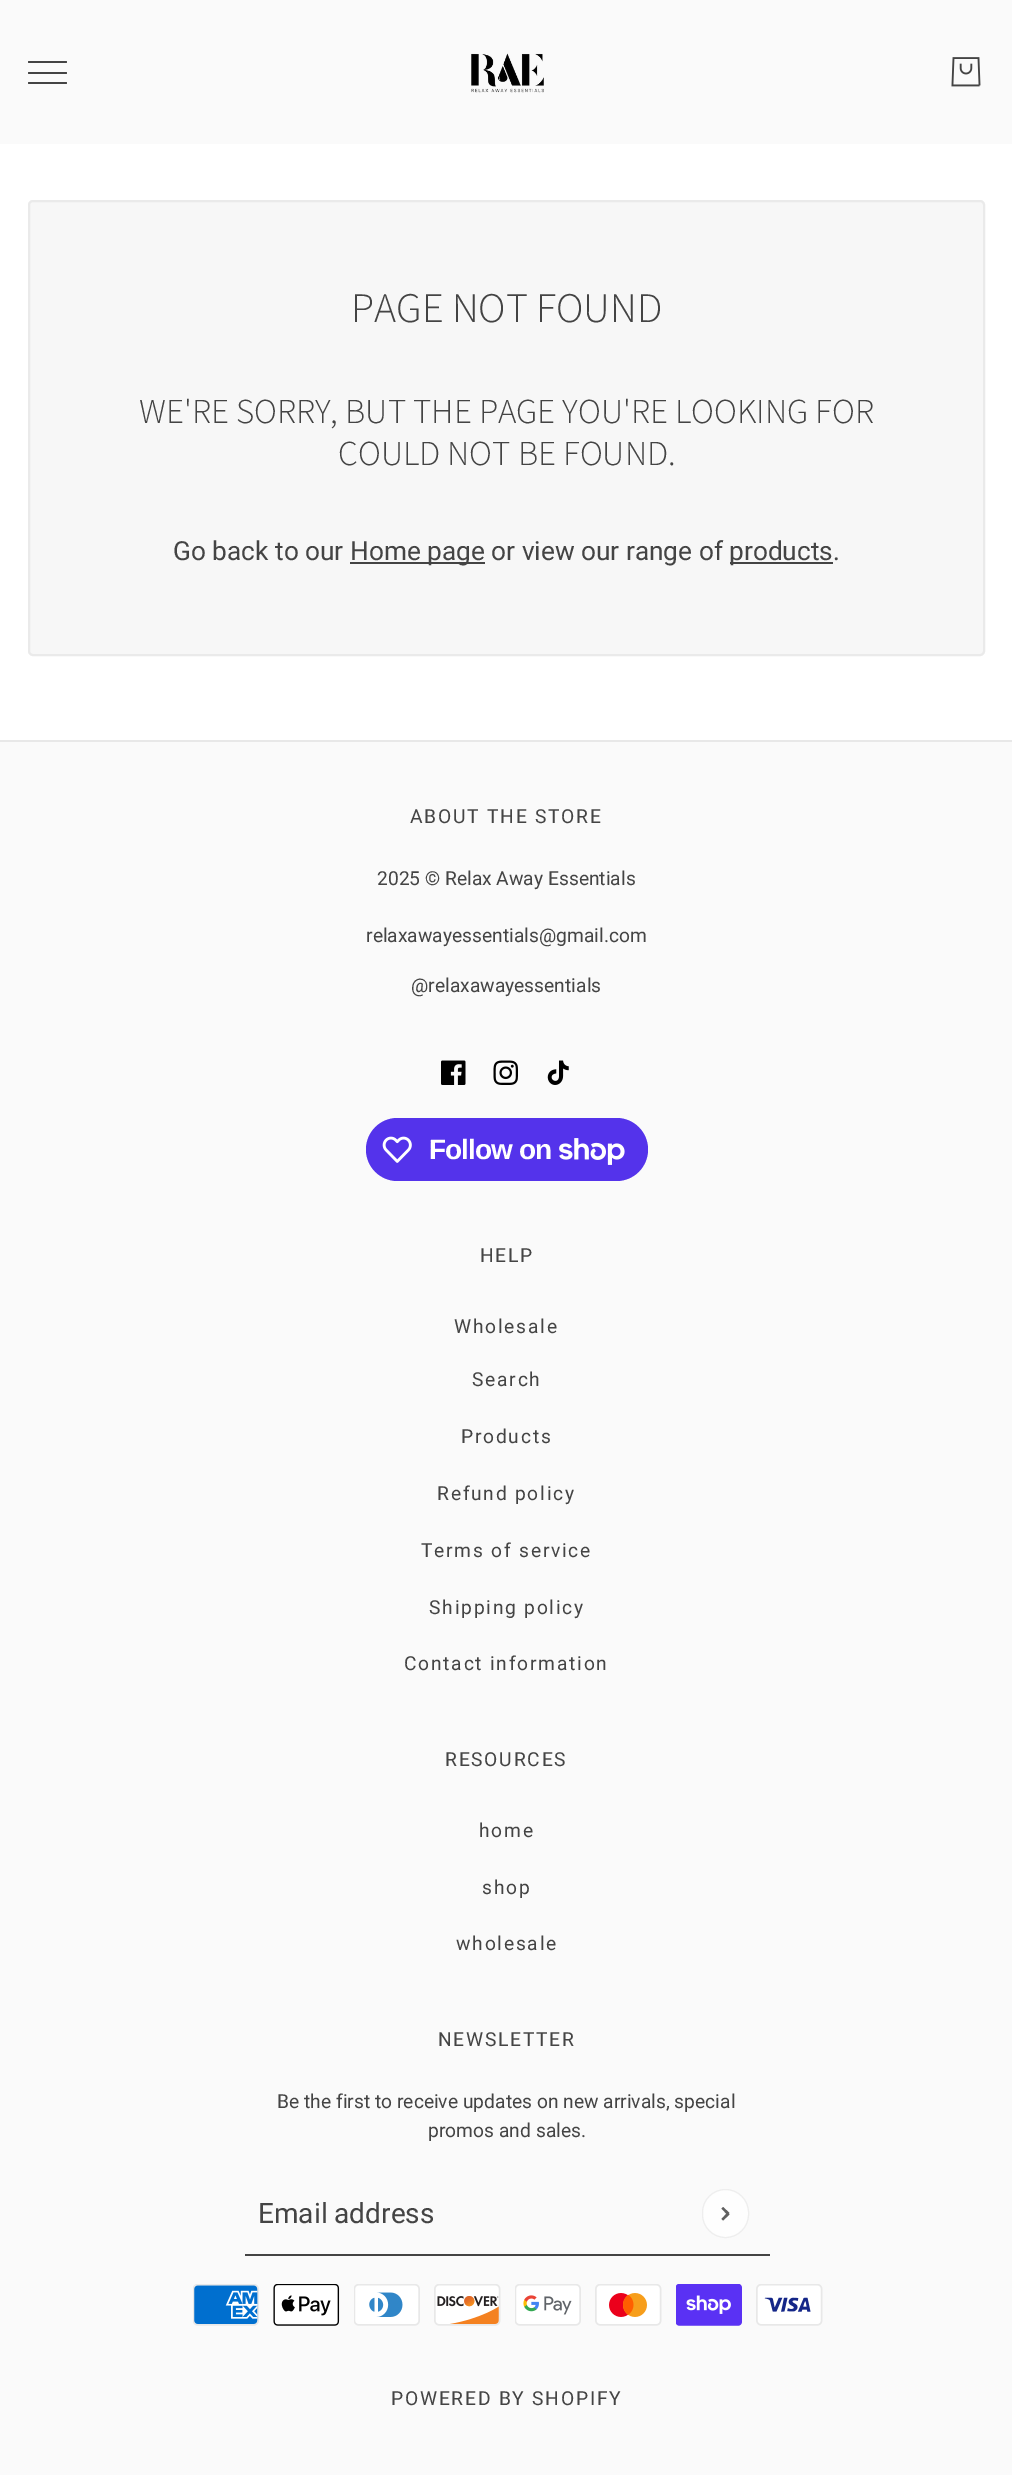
%!PS
<< /PageSize [1012 2475] >> setpagedevice
/mt/moveto load def
/li/lineto load def
/cp/closepath load def
/fl/fill load def
/st/stroke load def
/gs/gsave load def
/gr/grestore load def
/lw/setlinewidth load def
/co { dup -16 bitshift 255 div exch dup -8 bitshift 255 and 255 div exch 255 and 255 div setrgbcolor } def
/fn { [ exch dup neg 0 0 3 -1 roll 0 0 ] selectfont } def
/tx { co fn moveto show } def
/bx { co rectfill } def
/rr { 5 dict begin { /r /h /w /y /x } { exch def } forall
  x r add y moveto x w add y 2 copy h add r arct x w add y h add x 1 index r arct
  x y h add x y r arct x y 2 copy exch w add exch r arct closepath end } def
/im { 5 dict begin { /h /w /y /x /name } { exch def } forall
  gsave x y translate w h scale
  w h 8 [w 0 0 h 0 0] name (r) file false 3 colorimage grestore end } def
0 2475 translate 1 -1 scale
4 setmiterlimit
0 0 1012 2475 16#FFFFFF bx
0 0 1012 144 16#FAFAFA bx
16#444444 co
28 61 39 2 1 rr fl
28 72 39 2 1 rr fl
28 82 39 2 1 rr fl
(media/1.raw) 471 53 73 40 im
(media/2.raw) 951 57 30 30 im
16#F7F7F7 co
29 201 955 454 4 rr gs fl gr
16#EAEAEA co
2 lw
st
350 562 135 2 16#444444 bx
730 562 103 2 16#444444 bx
0 742 1012 1733 16#FAFAFA bx
0 740 1012 2 16#E8E8E8 bx
(media/3.raw) 441 1060 25 25 im
(media/4.raw) 493 1060 25 25 im
(media/5.raw) 547 1060 22 25 im
16#5433EB co
366 1118 282 63 31.5 rr fl
(media/6.raw) 382 1136 30 27 im
(media/7.raw) 559 1138 66 27 im
245 2254 525 2 16#444444 bx
16#FEFEFE co
702.5 2189.5 46 48 23 rr gs fl gr
16#EEEEEE co
1 lw
st
16#5F5F5F co
721.5 2219 mt 727.5 2212.5 li 729.5 2214.5 li 723 2220.5 li cp fl
723 2207 mt 729.5 2213 li 727.5 2215 li 721.5 2208.5 li cp fl
(media/8.raw) 193 2284 66 42 im
(media/9.raw) 273 2284 67 42 im
(media/10.raw) 354 2284 66 42 im
(media/11.raw) 434 2284 67 42 im
(media/12.raw) 515 2284 66 42 im
(media/13.raw) 595 2284 67 42 im
(media/14.raw) 676 2284 66 42 im
(media/15.raw) 756 2284 67 42 im
(PAGE NOT FOUND) 351 322 /SourceSansPro-Light 42 16#444444 tx
(WE'RE SORRY, BUT THE PAGE YOU'RE LOOKING FOR) 139 423 /SourceSansPro-Light 35 16#444444 tx
(COULD NOT BE FOUND.) 338 465 /SourceSansPro-Light 35 16#444444 tx
(Go back to our) 173 560 /Roboto-Regular 26.25 16#444444 tx
(Home page or view our range of) 350 560 /Roboto-Regular 26.25 16#444444 tx
(products.) 729 560 /Roboto-Regular 26.25 16#444444 tx
/Roboto-Regular 19.25 fn
410 823 mt 1.75 0 (ABOUT THE STORE) ashow
(2025 © Relax Away Essentials) 377 885 /Roboto-Regular 19.25 16#444444 tx
(relaxawayessentials@gmail.com) 366 942 /Roboto-Regular 19.25 16#444444 tx
(@relaxawayessentials) 411 992 /Roboto-Regular 19.25 16#444444 tx
/LiberationSans-Bold 28 fn
16#FFFFFF co
429 1159 mt -.9 0 (Follow on) ashow
/Roboto-Regular 19.25 fn
16#444444 co
480 1262 mt 1.75 0 (HELP) ashow
454 1333 mt 1.75 0 (Wholesale) ashow
472 1386 mt 1.75 0 (Search) ashow
461 1443 mt 1.75 0 (Products) ashow
437 1500 mt 1.75 0 (Refund policy) ashow
421 1557 mt 1.75 0 (Terms of service) ashow
429 1614 mt 1.75 0 (Shipping policy) ashow
404 1670 mt 1.75 0 (Contact information) ashow
445 1766 mt 1.75 0 (RESOURCES) ashow
479 1837 mt 1.75 0 (home) ashow
482 1894 mt 1.75 0 (shop) ashow
456 1950 mt 1.75 0 (wholesale) ashow
438 2046 mt 1.75 0 (NEWSLETTER) ashow
(Be the first to receive updates on new arrivals, special) 277 2108 /Roboto-Regular 19.25 16#444444 tx
(promos and sales.) 428 2137 /Roboto-Regular 19.25 16#444444 tx
(Email address) 258 2223 /Roboto-Regular 28 16#444444 tx
/Roboto-Regular 19.25 fn
391 2405 mt 1.75 0 (POWERED BY SHOPIFY) ashow
showpage
